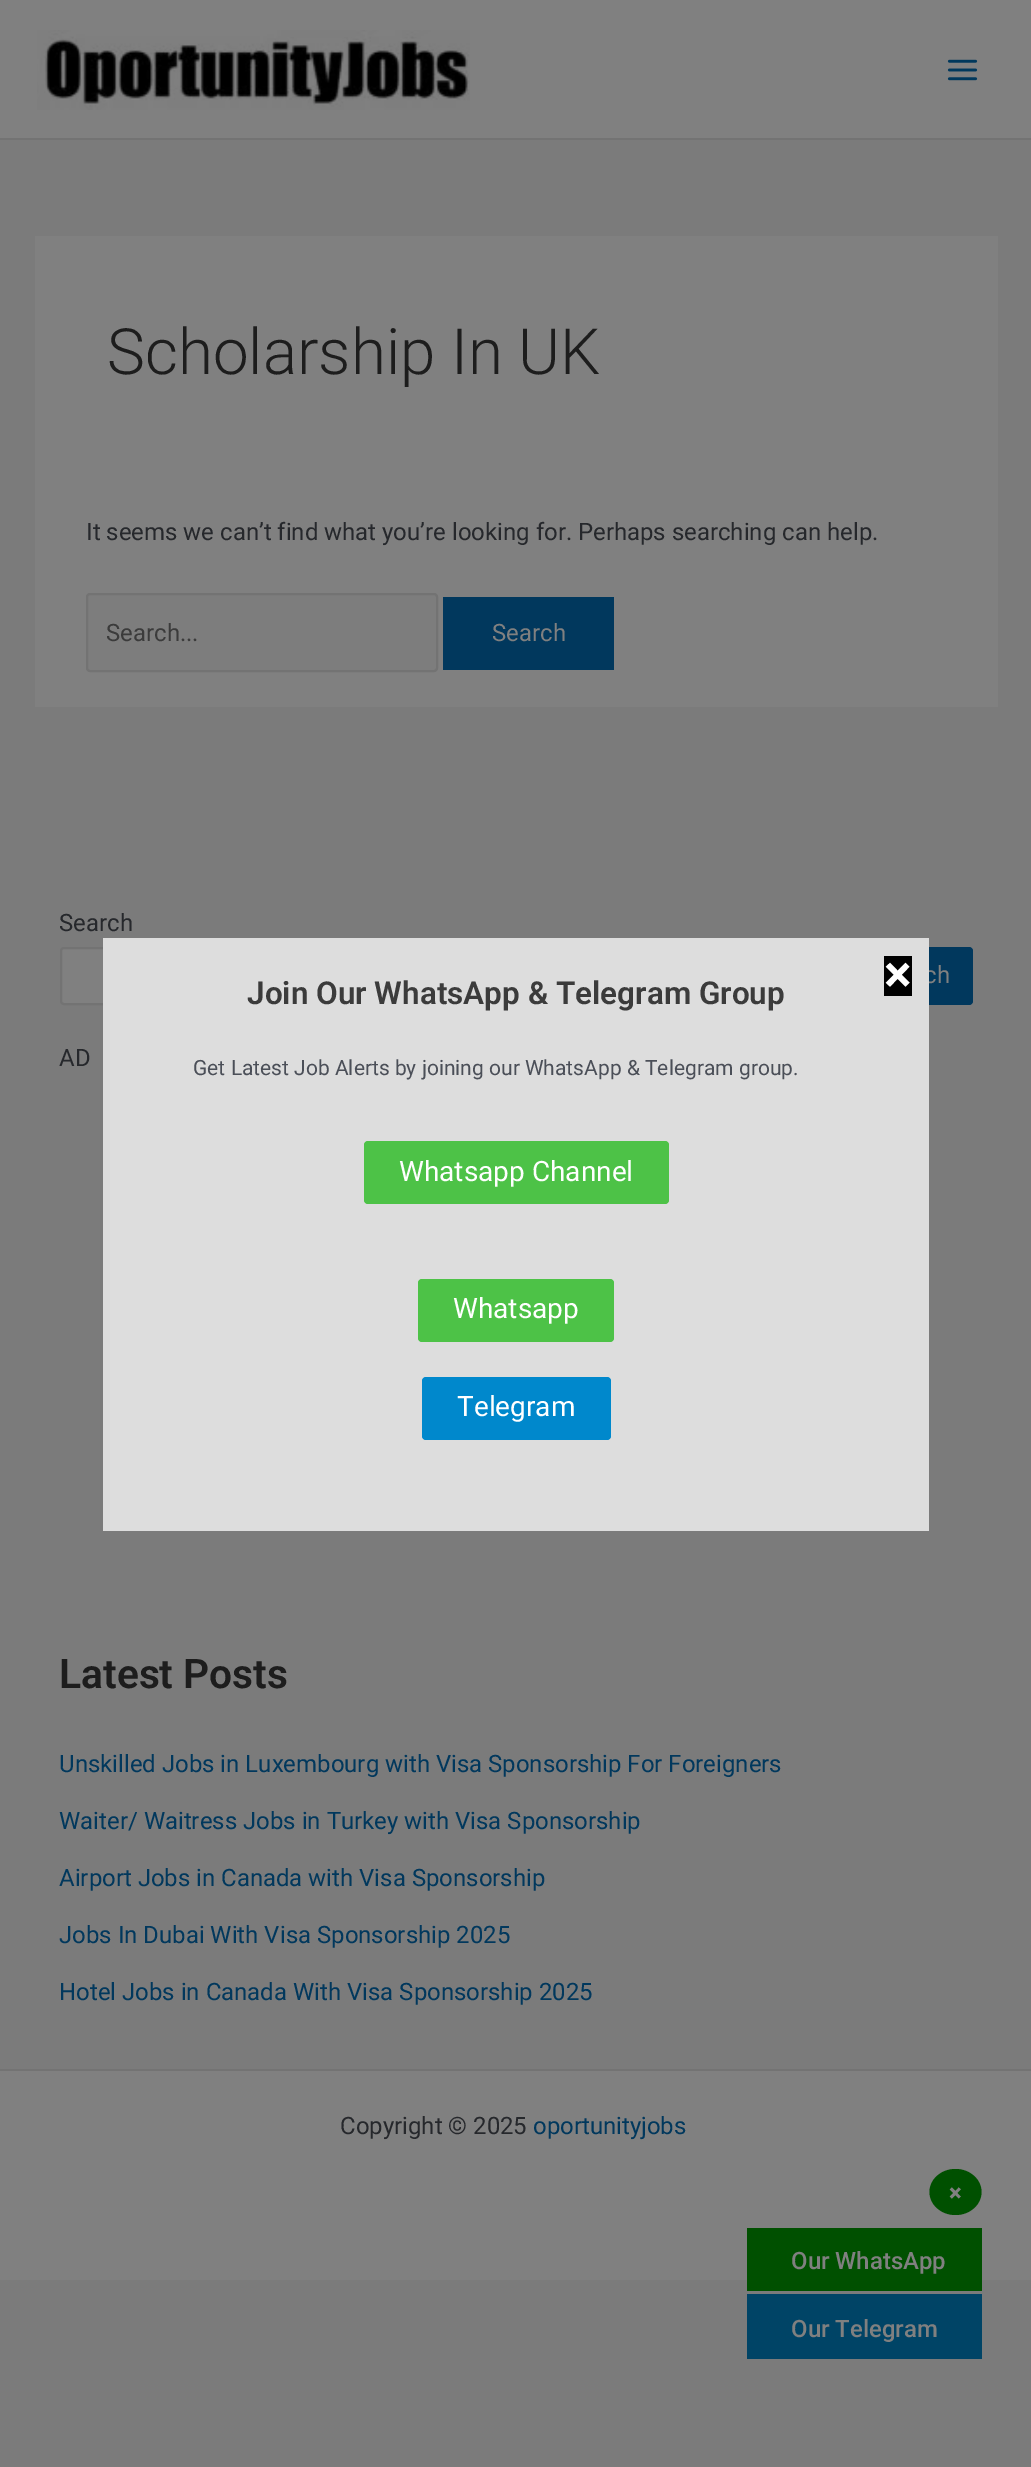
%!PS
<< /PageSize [1031 2467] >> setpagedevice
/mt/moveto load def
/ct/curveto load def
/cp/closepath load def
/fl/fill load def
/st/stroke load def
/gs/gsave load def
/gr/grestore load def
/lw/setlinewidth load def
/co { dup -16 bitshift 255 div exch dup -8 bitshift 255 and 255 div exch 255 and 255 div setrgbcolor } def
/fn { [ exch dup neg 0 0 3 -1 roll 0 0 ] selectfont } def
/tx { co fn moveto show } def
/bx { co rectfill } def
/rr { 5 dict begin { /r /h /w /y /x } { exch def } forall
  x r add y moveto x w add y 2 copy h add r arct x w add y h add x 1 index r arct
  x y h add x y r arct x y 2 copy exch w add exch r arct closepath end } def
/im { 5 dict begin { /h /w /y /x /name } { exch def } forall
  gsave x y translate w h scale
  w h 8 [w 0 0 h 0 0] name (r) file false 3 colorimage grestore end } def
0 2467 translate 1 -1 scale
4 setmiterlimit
0 0 1031 2467 16#7B7B7B bx
0 0 1031 138 16#808080 bx
0 138 1031 2 16#737373 bx
(media/1.raw) 37 30 433 80 im
(media/2.raw) 947 59 31 22 im
35 236 963 471 16#808080 bx
16#7D7D7D co
87 594 350 77 3 rr gs fl gr
16#737373 co
2 lw
st
443 597 171 73 16#01385D bx
16#808080 co
61 948 773 56 3 rr gs fl gr
16#737373 co
st
16#01385D co
852 947 121 58 4 rr fl
0 2071 1031 209 16#808080 bx
0 2069 1031 2 16#737373 bx
16#005000 co
955.5 2169 mt 970 2169 981.5 2179.5 981.5 2192 ct 981.5 2204.5 970 2215 955.5 2215 ct 941 2215 929.5 2204.5 929.5 2192 ct 929.5 2179.5 941 2169 955.5 2169 ct cp fl
747 2228 235 63 16#005000 bx
747 2294 235 65 16#004466 bx
(Scholarship In UK) 107 374 /Roboto-Light 63.75 16#1D1D1D tx
(It seems we can’t find what you’re looking for. Perhaps searching can help.) 86 540 /Roboto-Regular 23.95 16#26282C tx
(Search...) 106 641 /Roboto-Regular 23.95 16#3B3B3B tx
(Search) 492 641 /Roboto-Regular 23.95 16#808080 tx
(Search) 59 931 /Roboto-Regular 23.95 16#26282C tx
(ch) 924 983 /Roboto-Regular 23.95 16#808080 tx
(AD) 59 1066 /Roboto-Regular 23.95 16#26282C tx
(Latest Posts) 59 1688 /Roboto-SemiBold 40.75 16#1D1D1D tx
(Unskilled Jobs in Luxembourg with Visa Sponsorship For Foreigners) 59 1772 /Roboto-Regular 23.95 16#01385D tx
(Waiter/ Waitress Jobs in Turkey with Visa Sponsorship) 59 1829 /Roboto-Regular 23.95 16#01385D tx
(Airport Jobs in Canada with Visa Sponsorship) 59 1886 /Roboto-Regular 23.95 16#01385D tx
(Jobs In Dubai With Visa Sponsorship 2025) 59 1943 /Roboto-Regular 23.95 16#01385D tx
(Hotel Jobs in Canada With Visa Sponsorship 2025) 59 2000 /Roboto-Regular 23.95 16#01385D tx
(Copyright © 2025) 340 2134 /Roboto-Regular 23.95 16#26282C tx
(oportunityjobs) 533 2134 /Roboto-Regular 23.95 16#01385D tx
103 938 826 593 16#DDDDDD bx
884 956 28 40 16#000000 bx
(×) 884 992 /Roboto-Bold 52 16#FFFFFF tx
(Join Our WhatsApp & Telegram Group) 247 1004 /Roboto-SemiBold 31.5 16#3B3B3B tx
(Get Latest Job Alerts by joining our WhatsApp & Telegram group.) 193 1075 /Roboto-Regular 21 16#4B4F58 tx
16#4DC247 co
364 1141 305 63 4 rr fl
(Whatsapp Channel) 399 1181 /Roboto-Regular 28 16#FFFFFF tx
16#4DC247 co
418 1279 196 63 4 rr fl
(Whatsapp) 453 1318 /Roboto-Regular 28 16#FFFFFF tx
16#0088CC co
422 1377 189 63 4 rr fl
(Telegram) 457 1416 /Roboto-Regular 28 16#FFFFFF tx
(×) 949 2201 /Roboto-Black 23.95 16#808080 tx
(Our WhatsApp) 791 2269 /Roboto-Medium 23.95 16#808080 tx
(Our Telegram) 791 2337 /Roboto-Medium 23.95 16#808080 tx
showpage
